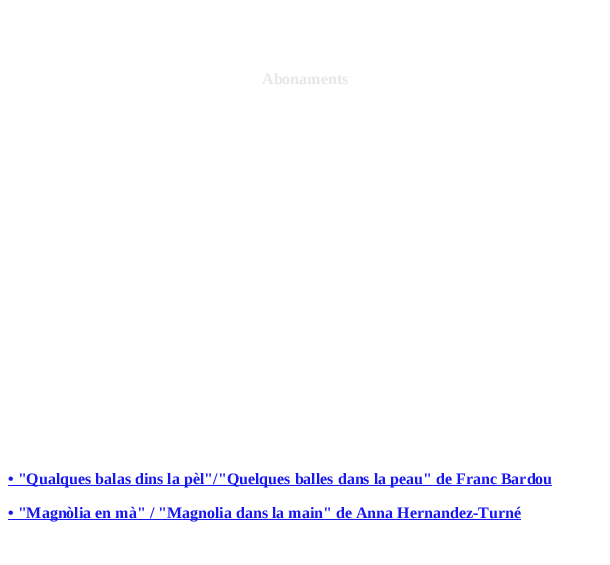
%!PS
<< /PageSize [610 565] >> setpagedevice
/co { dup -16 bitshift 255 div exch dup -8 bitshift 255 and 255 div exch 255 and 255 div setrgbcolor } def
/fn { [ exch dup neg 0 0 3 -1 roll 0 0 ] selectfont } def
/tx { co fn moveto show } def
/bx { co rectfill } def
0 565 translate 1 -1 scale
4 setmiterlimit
0 0 610 565 16#FFFFFF bx
8 485 544 1 16#1818F0 bx
8 519 513 1 16#1818F0 bx
(Abonaments) 262 84 /LiberationSerif-Bold 16 16#E7E7E7 tx
(• "Qualques balas dins la pèl"/"Quelques balles dans la peau" de Franc Bardou) 8 484 /LiberationSerif-Bold 16 16#1818F0 tx
(• "Magnòlia en mà" / "Magnolia dans la main" de Anna Hernandez-Turné) 8 518 /LiberationSerif-Bold 16 16#1818F0 tx
showpage
